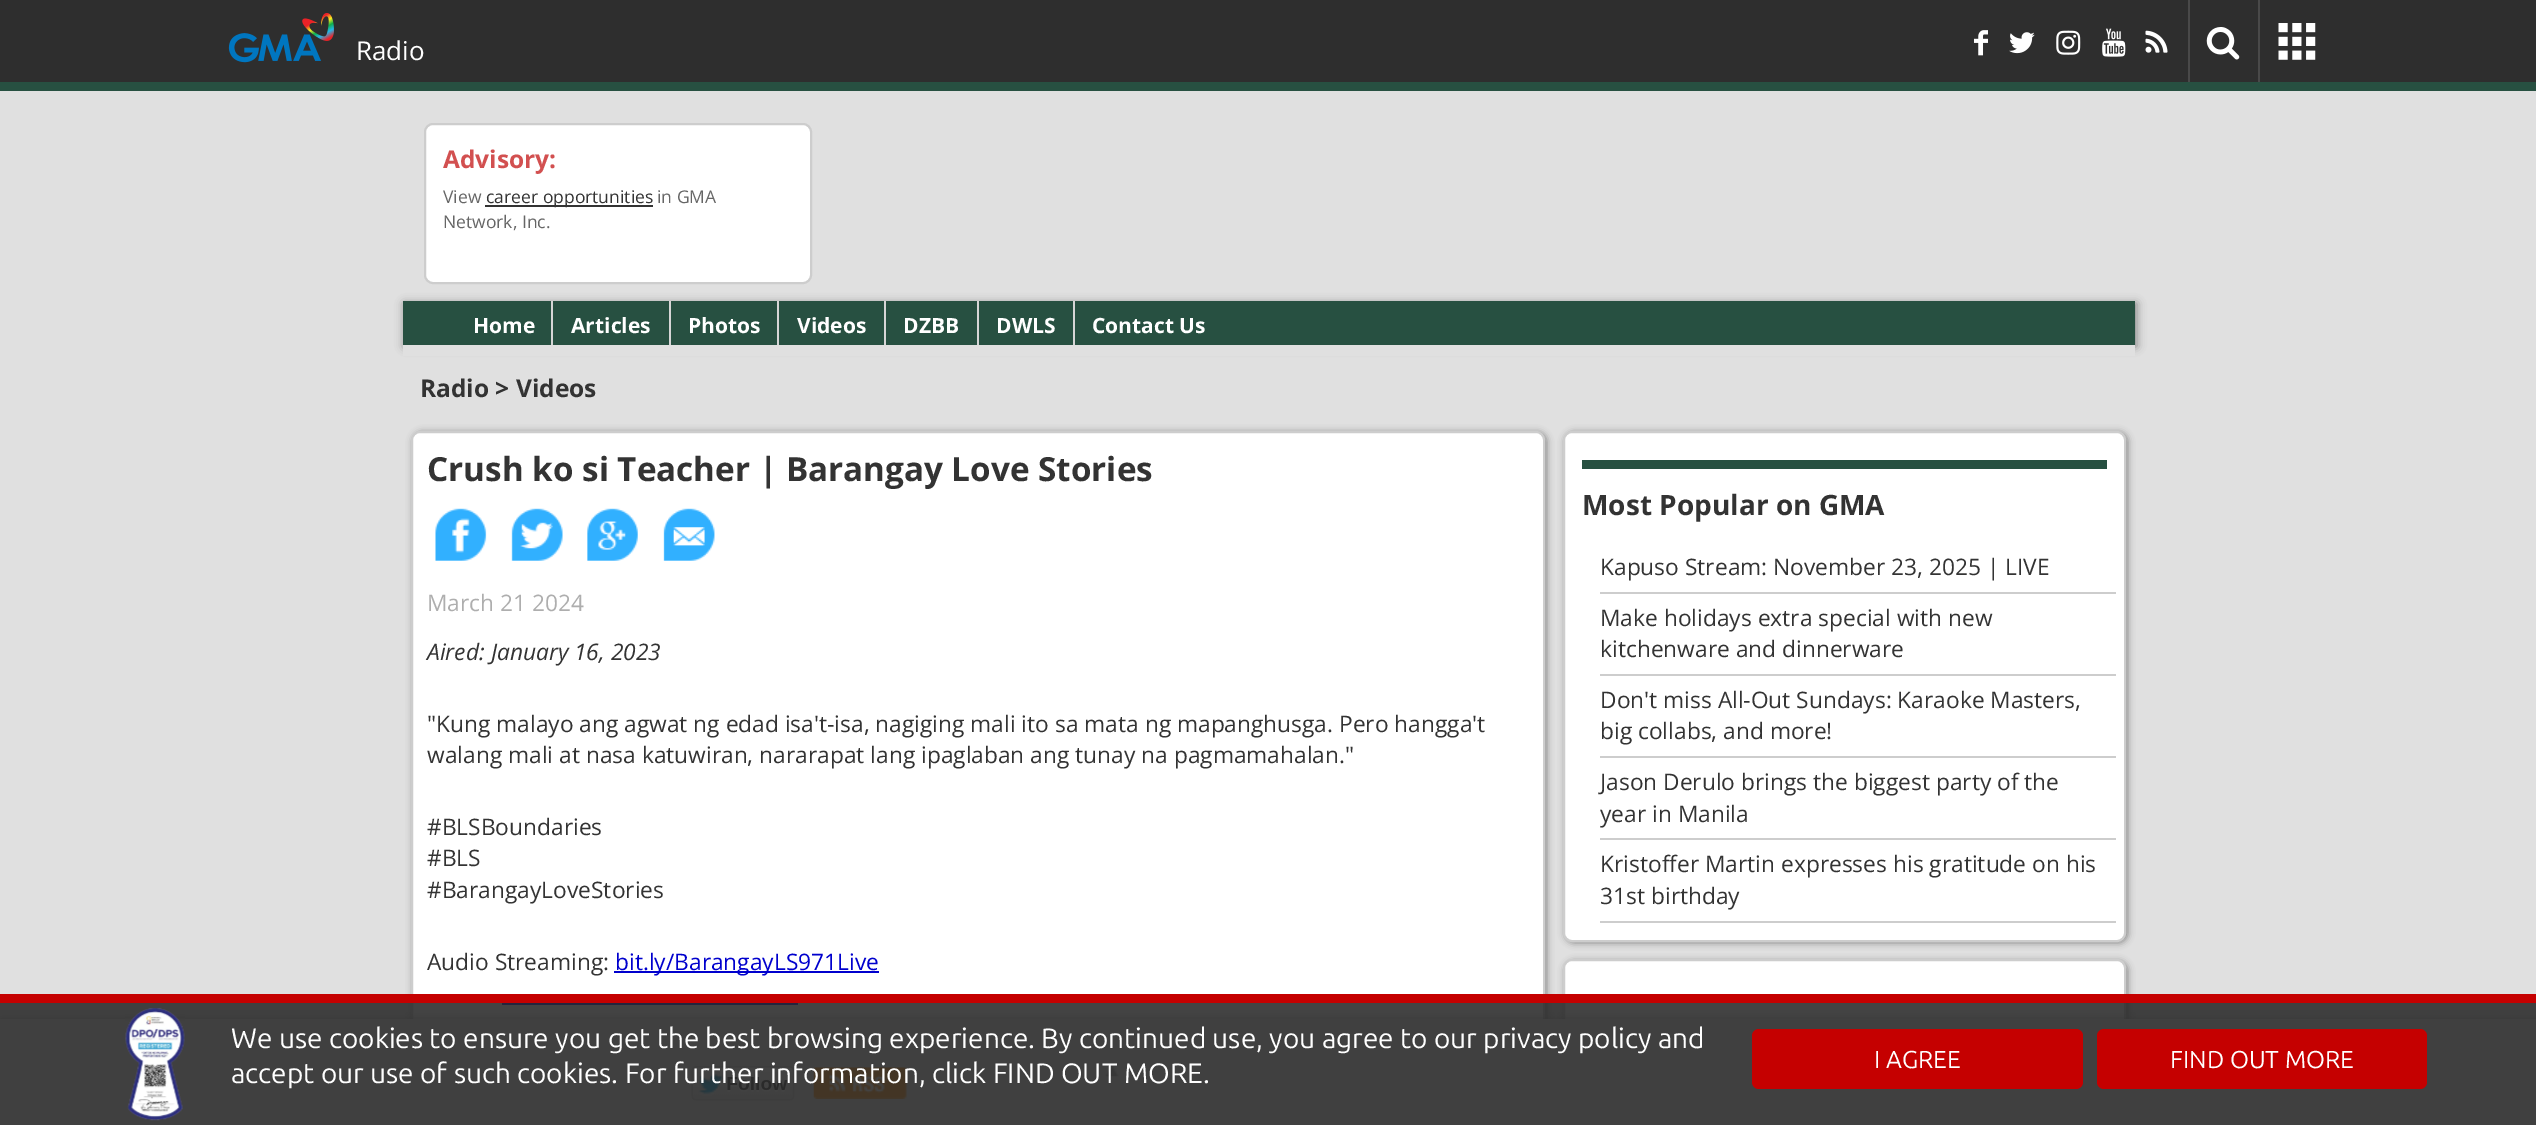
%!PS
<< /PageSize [2536 1125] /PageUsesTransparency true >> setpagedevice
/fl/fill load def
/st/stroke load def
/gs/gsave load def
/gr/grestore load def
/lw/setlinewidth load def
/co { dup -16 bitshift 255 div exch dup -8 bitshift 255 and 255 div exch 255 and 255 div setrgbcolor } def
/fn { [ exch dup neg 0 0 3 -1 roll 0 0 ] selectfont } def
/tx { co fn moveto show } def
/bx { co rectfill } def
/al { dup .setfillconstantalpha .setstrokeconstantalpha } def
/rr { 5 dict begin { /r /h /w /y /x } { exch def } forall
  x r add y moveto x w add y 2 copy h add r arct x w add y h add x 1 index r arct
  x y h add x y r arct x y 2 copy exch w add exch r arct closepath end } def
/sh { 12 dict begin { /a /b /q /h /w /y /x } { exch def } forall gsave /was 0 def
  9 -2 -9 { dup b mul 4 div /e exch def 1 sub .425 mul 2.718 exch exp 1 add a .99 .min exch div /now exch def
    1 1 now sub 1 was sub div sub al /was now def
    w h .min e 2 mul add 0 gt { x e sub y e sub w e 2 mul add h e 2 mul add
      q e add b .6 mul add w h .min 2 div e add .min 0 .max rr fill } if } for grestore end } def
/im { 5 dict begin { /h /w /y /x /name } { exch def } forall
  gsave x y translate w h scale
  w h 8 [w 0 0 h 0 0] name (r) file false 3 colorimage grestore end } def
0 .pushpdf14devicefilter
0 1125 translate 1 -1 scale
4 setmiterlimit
0 0 2536 1125 16#E0E0E0 bx
0 0 2536 82 16#2E2E2E bx
0 82 2536 9 16#275041 bx
(media/1.raw) 228 13 106 50 im
(media/2.raw) 1974 30 14 26 im
(media/3.raw) 2009 32 26 22 im
(media/4.raw) 2056 30 25 25 im
(media/5.raw) 2102 28 24 29 im
(media/6.raw) 2145 30 23 23 im
2258 0 2 82 16#494949 bx
2188 0 2 82 16#494949 bx
(media/7.raw) 2206 27 34 33 im
(media/8.raw) 2278 23 38 37 im
16#FFFFFF co
425 124 386 159 8 rr gs fl gr
16#CDCDCD co
2 lw
st
485 205 168 2 16#333333 bx
16#888888 co
404 303 1733 44 0 4.5 1 sh
403 301 1732 44 16#275041 bx
551 301 2 47 16#D6D6D6 bx
669 301 2 47 16#D6D6D6 bx
777 301 2 47 16#D6D6D6 bx
884 301 2 47 16#D6D6D6 bx
977 301 2 47 16#D6D6D6 bx
1073 301 2 47 16#D6D6D6 bx
403 345 1732 11 16#E0E0E0 bx
16#888888 co
413 432 1134 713 9 3.5 1 sh
16#FFFFFF co
412 432 1132 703 8 rr gs fl gr
16#CDCDCD co
st
(media/9.raw) 435 508 52 53 im
(media/10.raw) 511 508 52 53 im
(media/11.raw) 587 508 51 53 im
(media/12.raw) 663 508 52 53 im
614 971 265 2 16#0000CD bx
502 1003 296 2 16#0000CD bx
16#888888 co
1565 432 563 511 9 3.5 1 sh
16#FFFFFF co
1564 432 561 509 8 rr gs fl gr
16#CDCDCD co
st
1582 460 525 9 16#275041 bx
1600 592 516 2 16#CDCDCD bx
1600 674 516 2 16#CDCDCD bx
1600 756 516 2 16#CDCDCD bx
1600 838 516 2 16#CDCDCD bx
1600 921 516 2 16#CDCDCD bx
16#888888 co
1565 961 563 105 9 3.5 1 sh
16#FFFFFF co
1564 960 561 103 8 rr gs fl gr
16#CDCDCD co
st
16#888888 co
2 1020 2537 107 0 3.5 1 sh
0 1021 2536 104 16#E6E6E6 bx
0 1019 2536 2 16#E4E4E4 bx
(media/13.raw) 691 1066 104 35 im
(media/14.raw) 813 1067 94 32 im
(media/15.raw) 1105 1065 14 12 im
0.88 al
0 1003 2536 122 16#292929 bx
1 al
0 994 2536 9 16#C50000 bx
(media/16.raw) 125 1008 60 113 im
1752 1029 331 60 7 rr fl
2097 1029 330 60 7 rr fl
(Radio) 356 60 /OpenSans-Regular 26 16#FFFFFF tx
(Advisory:) 443 168 /OpenSans-Bold 24.5 16#D25050 tx
(View) 443 203 /OpenSans-Regular 17.5 16#666666 tx
(career opportunities) 486 203 /OpenSans-Regular 17.5 16#333333 tx
(in GMA) 657 203 /OpenSans-Regular 17.5 16#666666 tx
(Network, Inc.) 443 228 /OpenSans-Regular 17.5 16#666666 tx
(Home) 473 333 /OpenSans-Bold 21 16#FFFFFF tx
(Articles) 571 333 /OpenSans-Bold 21 16#FFFFFF tx
(Photos) 688 333 /OpenSans-Bold 21 16#FFFFFF tx
(Videos) 797 333 /OpenSans-Bold 21 16#FFFFFF tx
(DZBB) 903 333 /OpenSans-Bold 21 16#FFFFFF tx
(DWLS) 996 333 /OpenSans-Bold 21 16#FFFFFF tx
(Contact Us) 1092 333 /OpenSans-Bold 21 16#FFFFFF tx
(Radio > Videos) 420 397 /OpenSans-Bold 24.5 16#333333 tx
(Crush ko si Teacher | Barangay Love Stories) 427 481 /OpenSans-Bold 33.25 16#333333 tx
(March 21 2024) 427 611 /OpenSans-Regular 22.75 16#AEAEAE tx
(Aired: January 16, 2023) 427 660 /OpenSans-Italic 22.75 16#333333 tx
("Kung malayo ang agwat ng edad isa't-isa, nagiging mali ito sa mata ng mapanghusga. Pero hangga't) 427 732 /OpenSans-Regular 22.75 16#333333 tx
(walang mali at nasa katuwiran, nararapat lang ipaglaban ang tunay na pagmamahalan.") 427 763 /OpenSans-Regular 22.75 16#333333 tx
(#BLSBoundaries) 427 835 /OpenSans-Regular 22.75 16#333333 tx
(#BLS) 427 866 /OpenSans-Regular 22.75 16#333333 tx
(#BarangayLoveStories) 427 898 /OpenSans-Regular 22.75 16#333333 tx
(Audio Streaming:) 427 970 /OpenSans-Regular 22.75 16#333333 tx
(bit.ly/BarangayLS971Live) 615 970 /OpenSans-Regular 22.75 16#0000CD tx
(Most Popular on GMA) 1582 515 /OpenSans-Bold 28 16#333333 tx
(Kapuso Stream: November 23, 2025 | LIVE) 1600 575 /OpenSans-Regular 22.75 16#333333 tx
(Make holidays extra special with new) 1600 626 /OpenSans-Regular 22.75 16#333333 tx
(kitchenware and dinnerware) 1600 657 /OpenSans-Regular 22.75 16#333333 tx
(Don't miss All-Out Sundays: Karaoke Masters,) 1600 708 /OpenSans-Regular 22.75 16#333333 tx
(big collabs, and more!) 1600 739 /OpenSans-Regular 22.75 16#333333 tx
(Jason Derulo brings the biggest party of the) 1600 790 /OpenSans-Regular 22.75 16#333333 tx
(year in Manila) 1600 822 /OpenSans-Regular 22.75 16#333333 tx
(Kristoffer Martin expresses his gratitude on his) 1600 872 /OpenSans-Regular 22.75 16#333333 tx
(31st birthday) 1600 904 /OpenSans-Regular 22.75 16#333333 tx
(We use cookies to ensure you get the best browsing experience. By continued use, you agree to our privacy policy and) 231 1048 /Ubuntu-Regular 28 16#FFFFFF tx
(accept our use of such cookies. For further information, click FIND OUT MORE.) 231 1083 /Ubuntu-Regular 28 16#FFFFFF tx
(I AGREE) 1874 1068 /Ubuntu-Regular 24.5 16#FFFFFF tx
(FIND OUT MORE) 2170 1068 /Ubuntu-Regular 24.5 16#FFFFFF tx
.poppdf14devicefilter showpage
